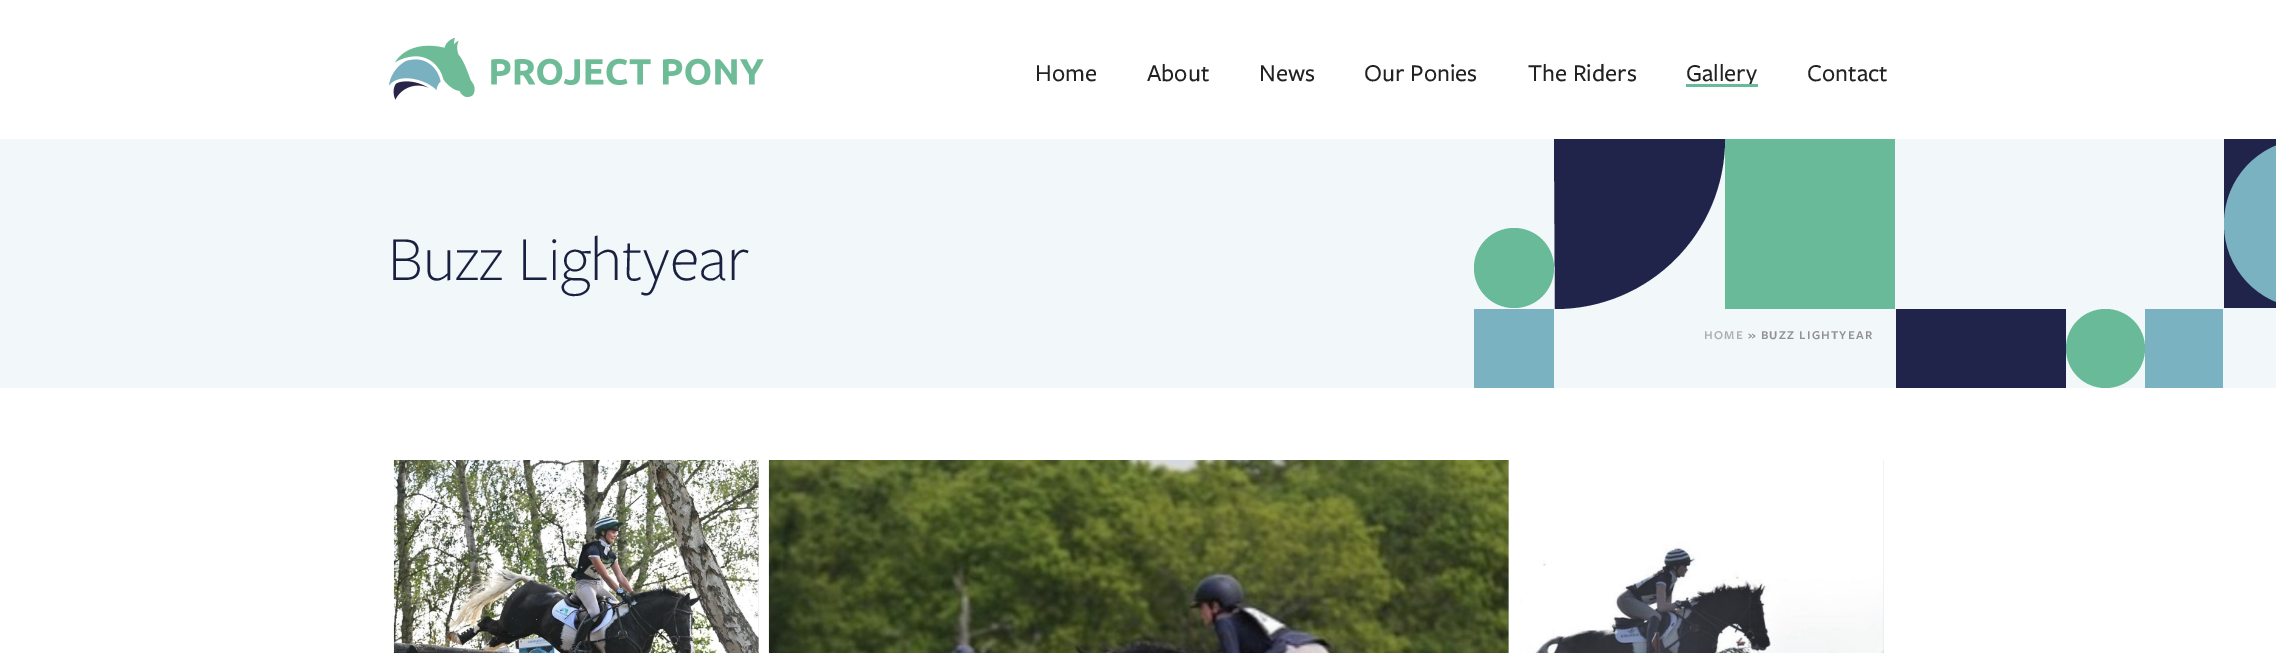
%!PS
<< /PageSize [2276 653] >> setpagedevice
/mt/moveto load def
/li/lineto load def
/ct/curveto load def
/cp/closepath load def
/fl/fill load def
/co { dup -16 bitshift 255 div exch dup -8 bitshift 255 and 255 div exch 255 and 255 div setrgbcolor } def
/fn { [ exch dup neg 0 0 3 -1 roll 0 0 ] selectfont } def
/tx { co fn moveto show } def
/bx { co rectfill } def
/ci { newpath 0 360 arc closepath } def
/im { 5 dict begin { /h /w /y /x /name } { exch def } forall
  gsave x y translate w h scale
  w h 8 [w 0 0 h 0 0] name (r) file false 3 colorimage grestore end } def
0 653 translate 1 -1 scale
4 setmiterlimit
0 0 2276 653 16#FFFFFF bx
(media/1.raw) 389 38 375 62 im
0 139 2276 249 16#F2F7F9 bx
2224 139 52 169 16#21244A bx
16#7AB2C2 co
2224 224 mt 2224 268 2258 305 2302 308 ct 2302 139 li 2258 143 2224 179 2224 224 ct cp fl
2145 309 78 79 16#7AB2C2 bx
1896 309 170 79 16#21244A bx
16#69BA99 co
2105.5 348.5 39.5 ci fl
1725 139 170 170 16#69BA99 bx
16#21244A co
1554 139 mt 1555 309 li 1649 309 1725 233 1725 139 ct cp fl
1474 309 80 79 16#7AB2C2 bx
16#69BA99 co
1514 268 40 ci fl
758 460 1 193 16#E0E0E0 bx
(media/2.raw) 393 460 366 193 im
1508 460 1 193 16#E0E0E0 bx
(media/3.raw) 768 460 741 193 im
1883 460 1 193 16#E0E0E0 bx
(media/4.raw) 1519 460 365 193 im
(Home) 1035 81 /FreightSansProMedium-Medium 25 16#222222 tx
(About) 1147 81 /FreightSansProMedium-Medium 25 16#222222 tx
(News) 1259 81 /FreightSansProMedium-Medium 25 16#222222 tx
(Our Ponies) 1364 81 /FreightSansProMedium-Medium 25 16#222222 tx
(The Riders) 1528 81 /FreightSansProMedium-Medium 25 16#222222 tx
(Gallery) 1686 81 /FreightSansProMedium-Medium 25 16#222222 tx
1686 84 72 3 16#68BB99 bx
(Contact) 1807 81 /FreightSansProMedium-Medium 25 16#222222 tx
(Buzz Lightyear) 388 280 /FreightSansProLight-Light 65 16#1A2140 tx
/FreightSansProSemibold-SemiBold 12.5 fn
16#AFAFAF co
1704 339 mt 1.25 0 (HOME) ashow
16#919191 co
1748 339 mt 1.25 0 (» BUZZ LIGHTYEAR) ashow
showpage
